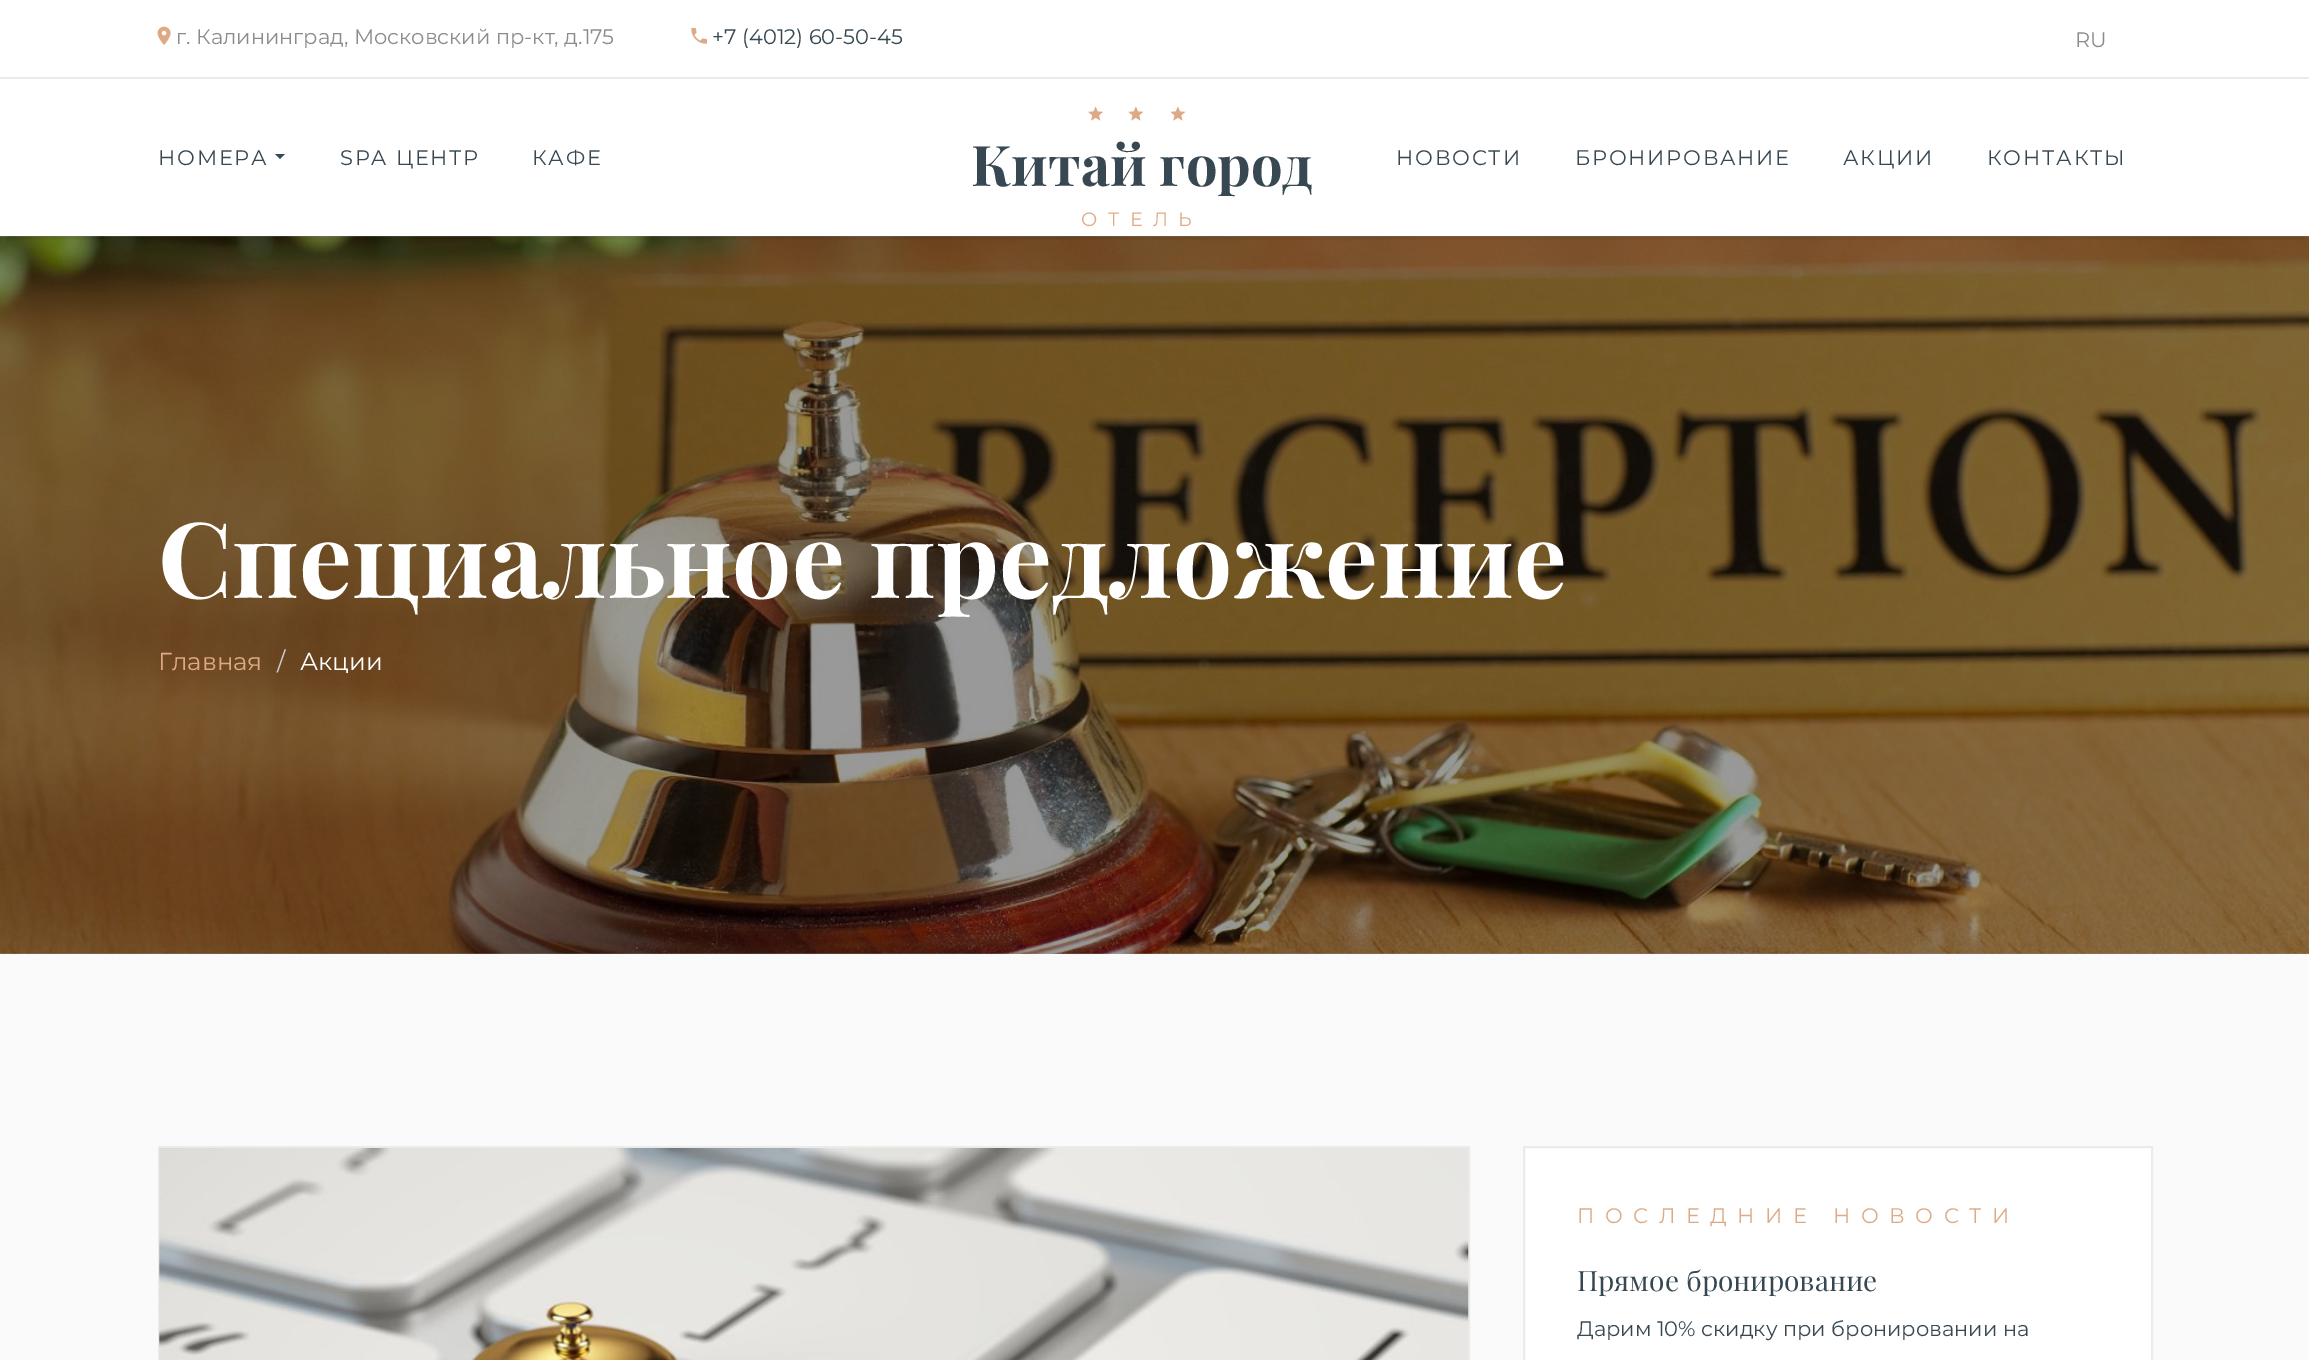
%!PS
<< /PageSize [2309 1360] /PageUsesTransparency true >> setpagedevice
/mt/moveto load def
/li/lineto load def
/cp/closepath load def
/fl/fill load def
/st/stroke load def
/gs/gsave load def
/gr/grestore load def
/lw/setlinewidth load def
/co { dup -16 bitshift 255 div exch dup -8 bitshift 255 and 255 div exch 255 and 255 div setrgbcolor } def
/fn { [ exch dup neg 0 0 3 -1 roll 0 0 ] selectfont } def
/tx { co fn moveto show } def
/bx { co rectfill } def
/al { dup .setfillconstantalpha .setstrokeconstantalpha } def
/rr { 5 dict begin { /r /h /w /y /x } { exch def } forall
  x r add y moveto x w add y 2 copy h add r arct x w add y h add x 1 index r arct
  x y h add x y r arct x y 2 copy exch w add exch r arct closepath end } def
/sh { 12 dict begin { /a /b /q /h /w /y /x } { exch def } forall gsave /was 0 def
  9 -2 -9 { dup b mul 4 div /e exch def 1 sub .425 mul 2.718 exch exp 1 add a .99 .min exch div /now exch def
    1 1 now sub 1 was sub div sub al /was now def
    w h .min e 2 mul add 0 gt { x e sub y e sub w e 2 mul add h e 2 mul add
      q e add b .6 mul add w h .min 2 div e add .min 0 .max rr fill } if } for grestore end } def
/im { 5 dict begin { /h /w /y /x /name } { exch def } forall
  gsave x y translate w h scale
  w h 8 [w 0 0 h 0 0] name (r) file false 3 colorimage grestore end } def
0 .pushpdf14devicefilter
0 1360 translate 1 -1 scale
4 setmiterlimit
0 0 2309 1360 16#FFFFFF bx
0 77 2309 2 16#EBEBEB bx
(media/1.raw) 157 26 14 19 im
(media/2.raw) 691 28 16 16 im
(media/5.raw) 0 236 2309 718 im
gs
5 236 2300 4 rectclip
16#000000 co
7 93 2296 143 0 3.5 .2 sh
gr
(media/3.raw) 1088 106 15 15 im
(media/4.raw) 1128 106 16 15 im
(media/4.raw) 1170 106 16 15 im
16#374853 co
275 154 mt 285 154 li 280 159 li cp fl
0 954 2309 406 16#FAFAFA bx
16#EBEBEB co
2 lw
159 1147 1310 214 rectstroke
(media/6.raw) 159 1148 1310 212 im
16#FFFFFF co
1524 1147 mt 2152 1147 li 2152 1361 li 1524 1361 li cp gs fl gr
16#EBEBEB co
st
(г. Калининград, Московский пр-кт, д.175) 176 44 /Montserrat-Regular 21 16#8B8B8B tx
(+7 \(4012\) 60-50-45) 712 44 /Montserrat-Regular 21 16#374853 tx
(RU) 2075 47 /Montserrat-Regular 21 16#8B8B8B tx
(Китай город) 971 186 /PlayfairDisplay-Bold 56 16#374853 tx
/Montserrat-Regular 19.25 fn
16#DEAA86 co
1081 226 mt 10.5 0 (ОТЕЛЬ) ashow
/Montserrat-Regular 21 fn
16#374853 co
158 165 mt 1.75 0 (НОМЕРА) ashow
340 165 mt 1.75 0 (SPA ЦЕНТР) ashow
532 165 mt 1.75 0 (КАФЕ) ashow
1396 165 mt 1.75 0 (НОВОСТИ) ashow
1575 165 mt 1.75 0 (БРОНИРОВАНИЕ) ashow
1843 165 mt 1.75 0 (АКЦИИ) ashow
1987 165 mt 1.75 0 (КОНТАКТЫ) ashow
(Специальное предложение) 158 598 /PlayfairDisplay-Bold 105 16#FFFFFF tx
(Главная) 158 670 /Montserrat-Regular 24.5 16#DEAA86 tx
(/) 277 670 /Montserrat-Regular 24.5 16#CCCCCC tx
(Акции) 300 670 /Montserrat-Regular 24.5 16#FFFFFF tx
/Montserrat-Regular 21 fn
16#DEAA86 co
1577 1223 mt 10.5 0 (ПОСЛЕДНИЕ НОВОСТИ) ashow
(Прямое бронирование) 1577 1291 /PlayfairDisplay-Regular 28 16#374853 tx
(Дарим 10% скидку при бронировании на) 1577 1336 /Montserrat-Regular 21 16#374853 tx
.poppdf14devicefilter showpage
